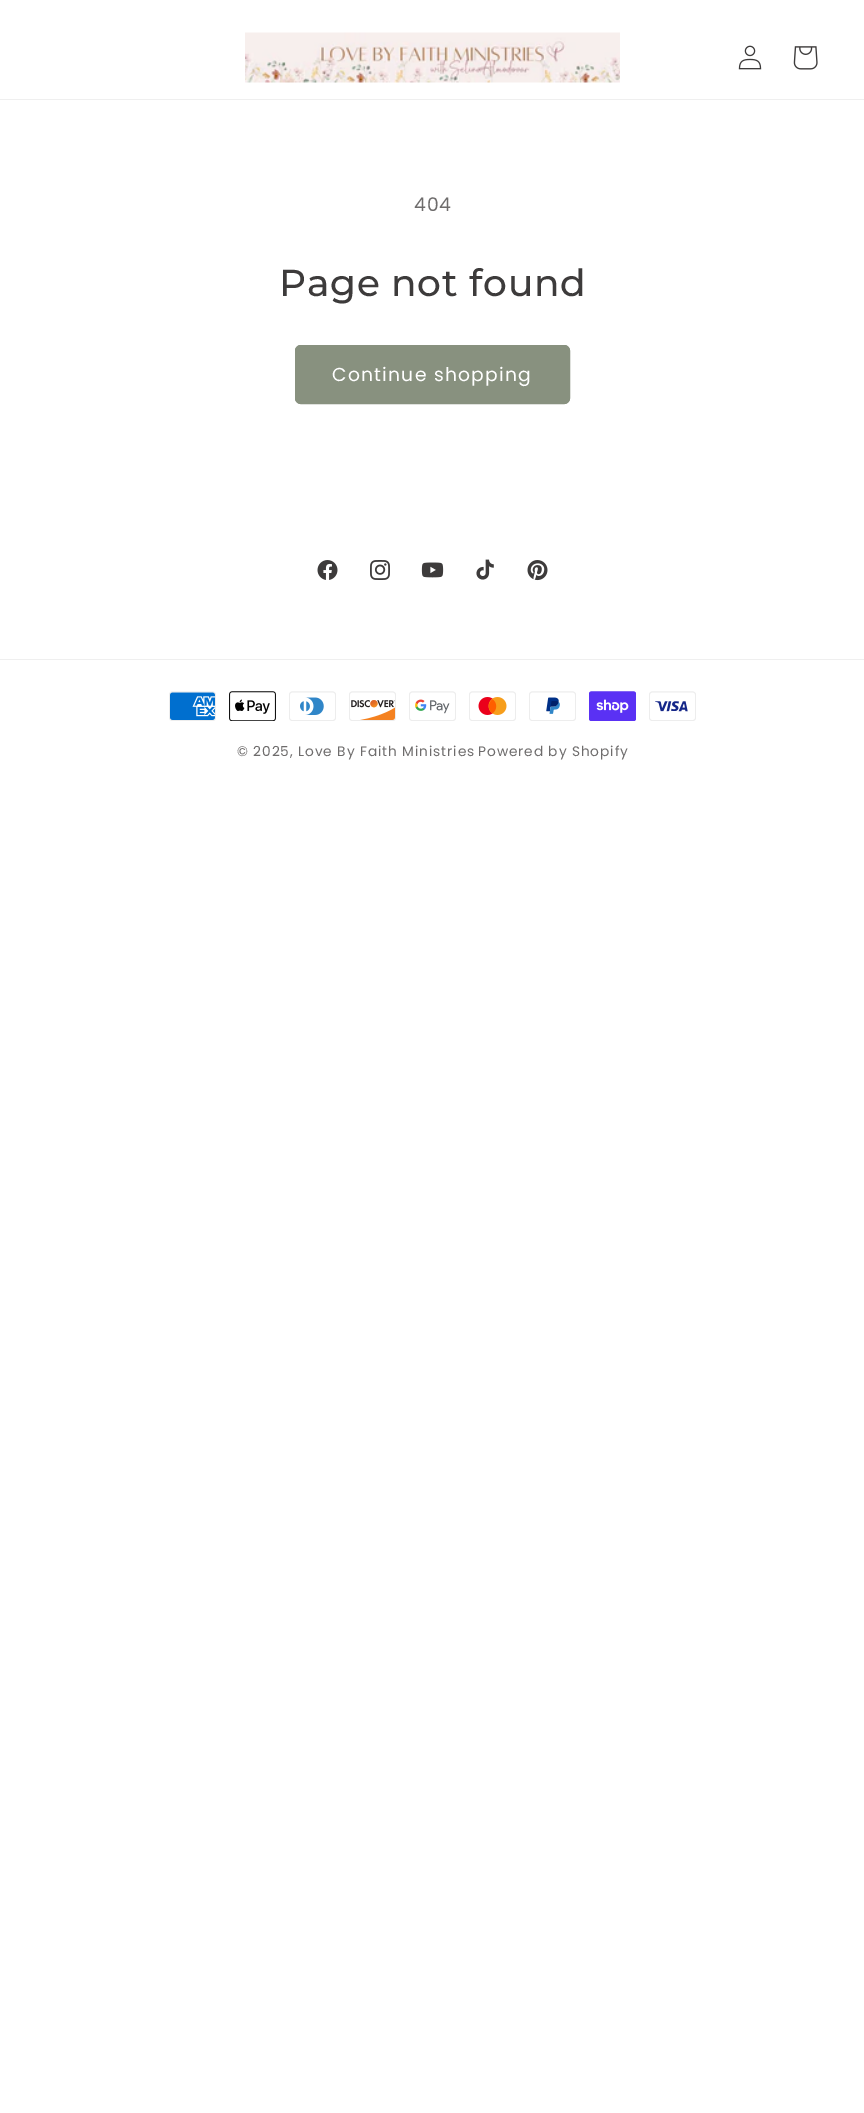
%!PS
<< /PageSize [864 2113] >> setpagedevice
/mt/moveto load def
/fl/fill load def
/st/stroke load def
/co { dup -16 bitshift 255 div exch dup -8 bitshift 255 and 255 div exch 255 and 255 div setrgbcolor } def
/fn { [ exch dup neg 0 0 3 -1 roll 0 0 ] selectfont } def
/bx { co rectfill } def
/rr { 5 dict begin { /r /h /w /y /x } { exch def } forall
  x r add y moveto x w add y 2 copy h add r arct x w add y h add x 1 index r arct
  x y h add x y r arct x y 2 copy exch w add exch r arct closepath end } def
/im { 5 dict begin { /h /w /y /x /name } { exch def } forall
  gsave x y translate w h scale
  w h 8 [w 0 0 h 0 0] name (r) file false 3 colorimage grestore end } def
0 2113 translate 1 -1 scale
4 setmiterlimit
0 0 864 2113 16#FFFFFF bx
0 99 864 1 16#EFEFEF bx
(media/1.raw) 245 32 375 51 im
(media/2.raw) 738 45 24 25 im
(media/3.raw) 793 46 25 24 im
16#88917F co
295 345 275 59 6 rr fl
295.5 345.5 274 58 5.5 rr st
(media/4.raw) 317 560 21 20 im
(media/5.raw) 370 560 20 20 im
(media/6.raw) 421 562 23 16 im
(media/7.raw) 476 559 18 21 im
(media/8.raw) 527 560 21 21 im
0 659 864 1 16#EFEFEF bx
(media/9.raw) 169 691 47 30 im
(media/10.raw) 229 691 47 30 im
(media/11.raw) 289 691 47 30 im
(media/12.raw) 349 691 47 30 im
(media/13.raw) 409 691 47 30 im
(media/14.raw) 469 691 47 30 im
(media/15.raw) 529 691 47 30 im
(media/16.raw) 589 691 47 30 im
(media/17.raw) 649 691 47 30 im
/Poppins-Regular 18.75 fn
16#6E6C6C co
414 211 mt .75 0 (404) ashow
/Montserrat-Medium 37.5 fn
16#3D3B3B co
279 296 mt .75 0 (Page not found) ashow
/Poppins-Regular 18.75 fn
16#FFFFFF co
332 381 mt 1.25 0 (Continue shopping) ashow
/Poppins-Regular 13.75 fn
16#6E6C6C co
237 756 mt .9 0 (© 2025, Love By Faith Ministries) ashow
478 756 mt .9 0 (Powered by Shopify) ashow
showpage
